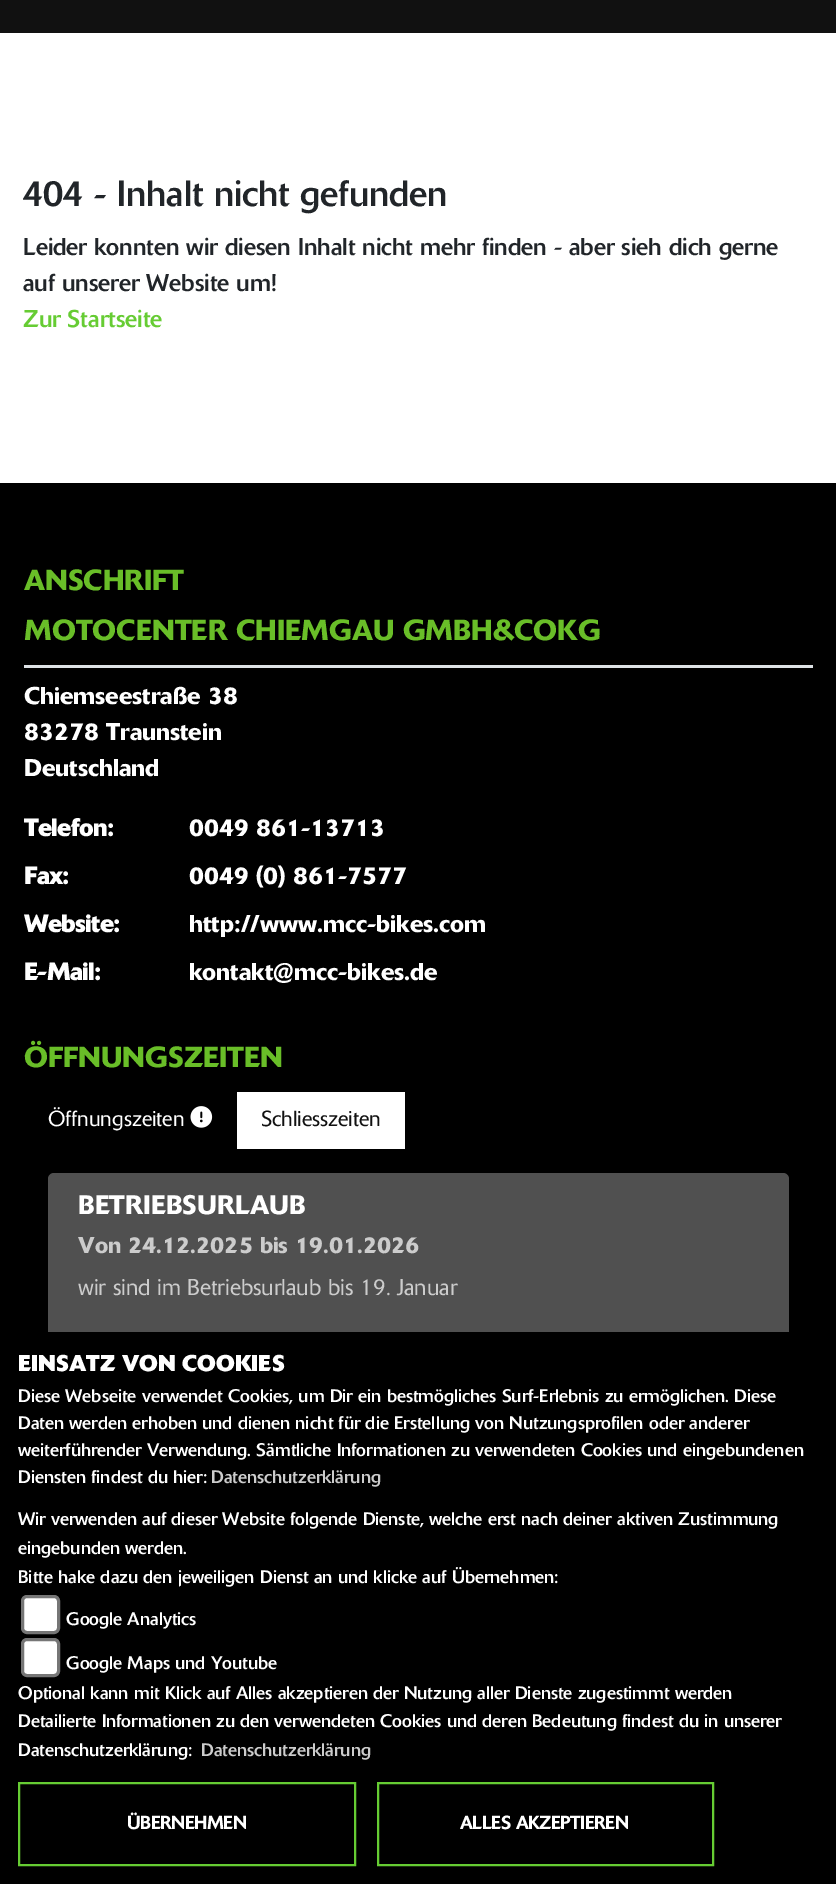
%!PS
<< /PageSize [836 1884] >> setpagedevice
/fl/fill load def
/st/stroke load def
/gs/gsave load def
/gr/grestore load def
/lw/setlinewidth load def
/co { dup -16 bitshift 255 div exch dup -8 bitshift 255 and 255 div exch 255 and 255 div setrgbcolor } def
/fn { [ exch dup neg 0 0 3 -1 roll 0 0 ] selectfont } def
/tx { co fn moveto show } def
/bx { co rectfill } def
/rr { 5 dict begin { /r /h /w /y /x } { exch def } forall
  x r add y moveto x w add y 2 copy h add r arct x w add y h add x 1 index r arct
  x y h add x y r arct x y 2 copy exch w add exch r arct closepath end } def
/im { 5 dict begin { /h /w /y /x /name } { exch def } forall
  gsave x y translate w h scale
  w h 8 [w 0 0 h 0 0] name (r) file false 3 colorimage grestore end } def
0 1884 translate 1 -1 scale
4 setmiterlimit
0 0 836 1884 16#FFFFFF bx
0 0 836 33 16#111111 bx
0 483 836 849 16#000000 bx
24 665 789 3 16#DEE2E6 bx
(media/1.raw) 190 1106 23 22 im
237 1092 168 57 16#FFFFFF bx
16#505050 co
48 1173 741 203 6 rr fl
0 1332 836 552 16#000000 bx
16#FFFFFF co
22.5 1596.5 36 36 4.5 rr gs fl gr
16#767676 co
3 lw
st
16#FFFFFF co
22.5 1639.5 36 36 4.5 rr gs fl gr
16#767676 co
st
16#66CC33 co
2 lw
19 1783 336 82 rectstroke
378 1783 335 82 rectstroke
(404 - Inhalt nicht gefunden) 23 206 /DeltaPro-Regular 36 16#212529 tx
(Leider konnten wir diesen Inhalt nicht mehr finden - aber sieh dich gerne) 23 255 /DeltaPro-Regular 24 16#212529 tx
(auf unserer Website um!) 23 291 /DeltaPro-Regular 24 16#212529 tx
(Zur Startseite) 23 327 /DeltaPro-Regular 24 16#66CC33 tx
(ANSCHRIFT) 24 590 /DeltaPro-Medium 28.8 16#69BE28 tx
(MOTOCENTER CHIEMGAU GMBH&COKG) 24 640 /DeltaPro-Medium 28.8 16#69BE28 tx
(Chiemseestraße 38) 24 704 /DeltaPro-Medium 24 16#FFFFFF tx
(83278 Traunstein) 24 740 /DeltaPro-Medium 24 16#FFFFFF tx
(Deutschland) 24 776 /DeltaPro-Medium 24 16#FFFFFF tx
(Telefon:) 24 836 /DeltaPro-Bold 24 16#FFFFFF tx
(0049 861-13713) 189 836 /DeltaPro-Medium 24 16#FFFFFF tx
(Fax:) 24 884 /DeltaPro-Bold 24 16#FFFFFF tx
(0049 \(0\) 861-7577) 189 884 /DeltaPro-Medium 24 16#FFFFFF tx
(Website:) 24 932 /DeltaPro-Bold 24 16#FFFFFF tx
(http://www.mcc-bikes.com) 189 932 /DeltaPro-Medium 24 16#FFFFFF tx
(E-Mail:) 24 980 /DeltaPro-Bold 24 16#FFFFFF tx
(kontakt@mcc-bikes.de) 189 980 /DeltaPro-Medium 24 16#FFFFFF tx
(ÖFFNUNGSZEITEN) 24 1067 /DeltaPro-Medium 28.8 16#69BE28 tx
(Öffnungszeiten) 48 1126 /DeltaPro-Light 21.5 16#FFFFFF tx
(Schliesszeiten) 261 1126 /DeltaPro-Light 21.5 16#111111 tx
(BETRIEBSURLAUB) 78 1214 /DeltaPro-Medium 26.5 16#FFFFFF tx
(Von 24.12.2025 bis 19.01.2026) 78 1253 /DeltaPro-Medium 22.75 16#CCCCCC tx
(wir sind im Betriebsurlaub bis 19. Januar) 78 1295 /DeltaPro-Light 22.75 16#CCCCCC tx
(EINSATZ VON COOKIES) 18 1371 /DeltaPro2-Bold 22.5 16#FFFFFF tx
(Diese Webseite verwendet Cookies, um Dir ein bestmögliches Surf-Erlebnis zu ermöglichen. Diese) 18 1402 /DeltaPro-Regular 18 16#FFFFFF tx
(Daten werden erhoben und dienen nicht für die Erstellung von Nutzungsprofilen oder anderer) 18 1429 /DeltaPro-Regular 18 16#FFFFFF tx
(weiterführender Verwendung. Sämtliche Informationen zu verwendeten Cookies und eingebundenen) 18 1456 /DeltaPro-Regular 18 16#FFFFFF tx
(Diensten findest du hier:) 18 1483 /DeltaPro-Regular 18 16#FFFFFF tx
(Datenschutzerklärung) 211 1483 /DeltaPro-Regular 18 16#CCCCCC tx
(Wir verwenden auf dieser Website folgende Dienste, welche erst nach deiner aktiven Zustimmung) 18 1525 /DeltaPro-Regular 18 16#FFFFFF tx
(eingebunden werden.) 18 1554 /DeltaPro-Regular 18 16#FFFFFF tx
(Bitte hake dazu den jeweiligen Dienst an und klicke auf Übernehmen:) 18 1583 /DeltaPro-Regular 18 16#FFFFFF tx
(Google Analytics) 66 1625 /DeltaPro-Regular 18 16#FFFFFF tx
(Google Maps und Youtube) 66 1669 /DeltaPro-Regular 18 16#FFFFFF tx
(Optional kann mit Klick auf Alles akzeptieren der Nutzung aller Dienste zugestimmt werden) 18 1699 /DeltaPro-Regular 18 16#FFFFFF tx
(Detailierte Informationen zu den verwendeten Cookies und deren Bedeutung findest du in unserer) 18 1727 /DeltaPro-Regular 18 16#FFFFFF tx
(Datenschutzerklärung:) 18 1756 /DeltaPro-Regular 18 16#FFFFFF tx
(Datenschutzerklärung) 201 1756 /DeltaPro-Regular 18 16#CCCCCC tx
(ÜBERNEHMEN) 127 1829 /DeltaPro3-Bold 18 16#FFFFFF tx
(ALLES AKZEPTIEREN) 460 1829 /DeltaPro3-Bold 18 16#FFFFFF tx
showpage
